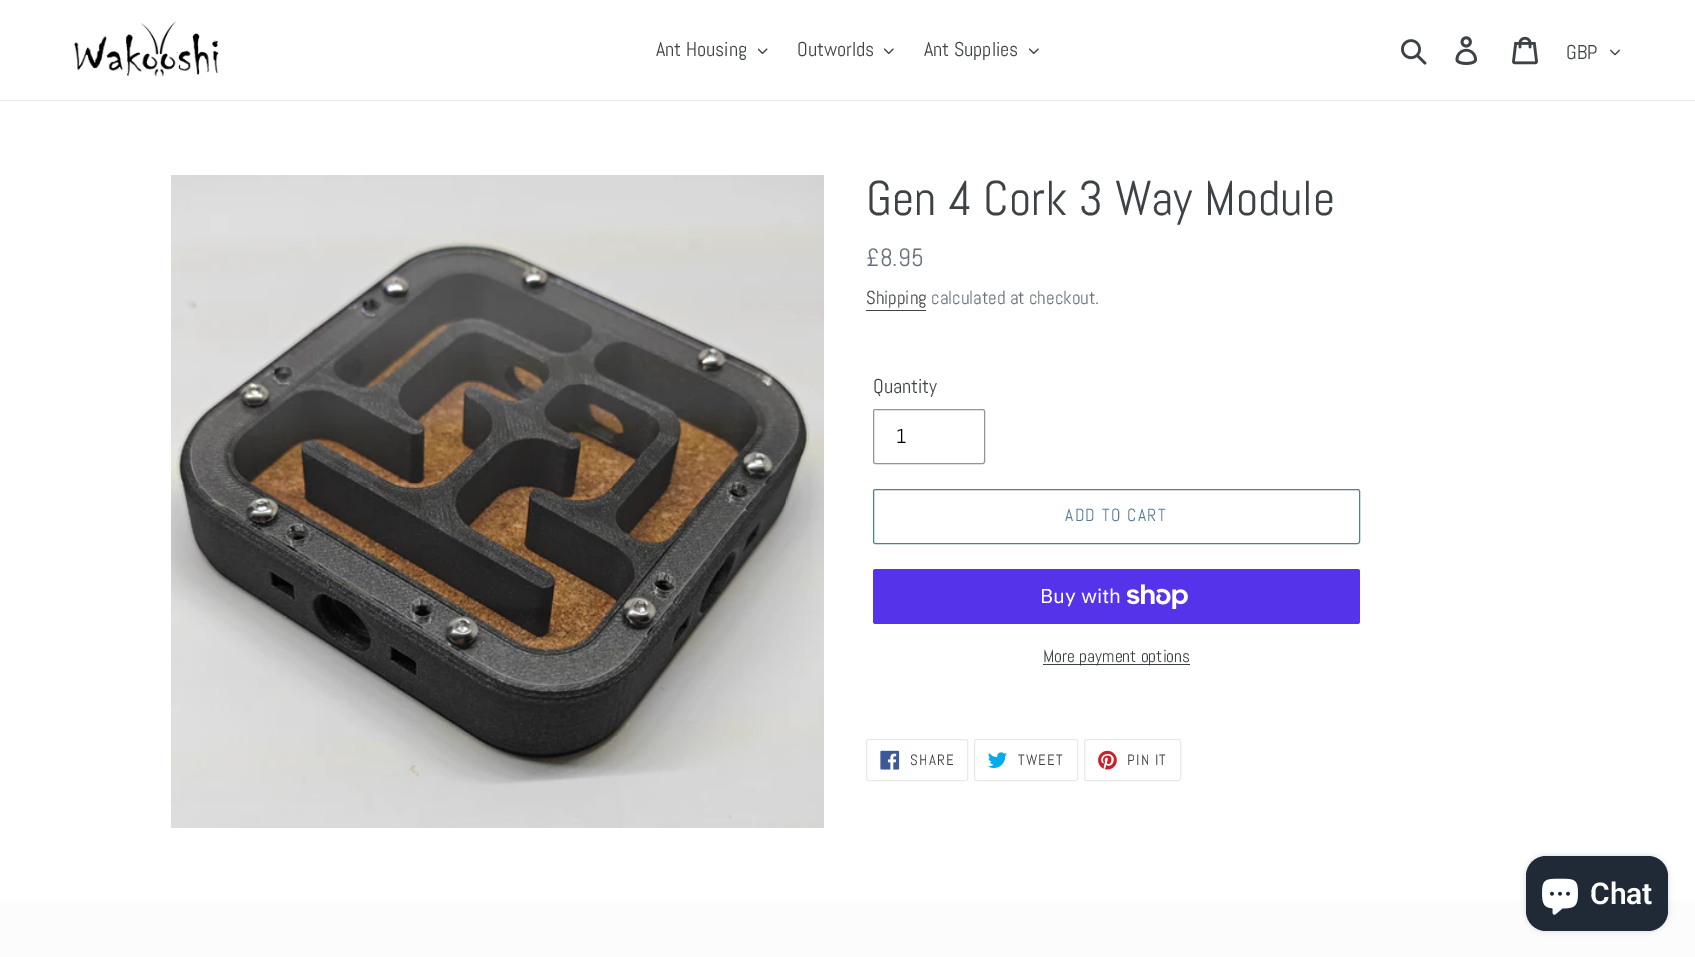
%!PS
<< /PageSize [1695 957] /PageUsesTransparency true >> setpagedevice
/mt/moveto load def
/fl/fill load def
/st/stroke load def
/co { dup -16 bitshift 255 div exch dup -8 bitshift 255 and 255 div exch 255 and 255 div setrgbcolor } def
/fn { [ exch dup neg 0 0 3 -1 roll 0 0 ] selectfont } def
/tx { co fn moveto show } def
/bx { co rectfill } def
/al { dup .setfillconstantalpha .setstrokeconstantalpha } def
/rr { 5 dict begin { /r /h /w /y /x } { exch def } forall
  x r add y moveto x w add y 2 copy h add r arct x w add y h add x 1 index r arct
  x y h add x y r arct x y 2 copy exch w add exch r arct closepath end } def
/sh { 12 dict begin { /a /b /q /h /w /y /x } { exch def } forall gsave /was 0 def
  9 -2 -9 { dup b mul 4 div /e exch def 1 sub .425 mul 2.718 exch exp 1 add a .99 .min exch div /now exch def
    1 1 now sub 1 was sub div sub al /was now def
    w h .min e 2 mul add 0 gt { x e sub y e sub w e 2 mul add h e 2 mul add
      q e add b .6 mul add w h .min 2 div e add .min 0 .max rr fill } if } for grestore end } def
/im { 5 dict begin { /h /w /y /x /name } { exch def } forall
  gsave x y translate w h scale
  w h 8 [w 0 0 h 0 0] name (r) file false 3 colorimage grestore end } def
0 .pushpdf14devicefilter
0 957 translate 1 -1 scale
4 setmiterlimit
0 0 1695 957 16#FFFFFF bx
0 100 1695 1 16#E8E9EB bx
(media/1.raw) 74 21 145 56 im
(media/2.raw) 758 48 10 7 im
(media/3.raw) 884 48 10 7 im
(media/3.raw) 1029 48 10 7 im
(media/4.raw) 1401 39 26 26 im
(media/5.raw) 1455 36 23 29 im
(media/6.raw) 1512 36 26 29 im
(media/7.raw) 1610 49 10 7 im
(media/8.raw) 171 175 653 653 im
866 310 60 1 16#3D4246 bx
16#949494 co
873.5 409.5 111 54 2 rr st
16#557B97 co
873.5 489.5 486 54 2 rr st
16#5433EB co
873 569 487 55 2.5 rr fl
(media/9.raw) 1126 584 62 25 im
1043 664 147 1 16#3D4246 bx
16#E8E9EB co
866.5 739.5 101 41 2 rr st
(media/10.raw) 880 750 20 20 im
974.5 739.5 103 41 2 rr st
(media/11.raw) 988 752 19 16 im
1084.5 739.5 96 41 2 rr st
(media/12.raw) 1098 750 19 20 im
0 901 1695 56 16#FCFCFC bx
16#000000 co
1526 856 142 75 20 3 .15 sh
16#202A36 co
1526 856 142 75 20 rr fl
(media/13.raw) 1542 878 36 37 im
(Ant Housing) 656 56 /Abel-Regular 20 16#3D4246 tx
(Outworlds) 797 56 /Abel-Regular 20 16#3D4246 tx
(Ant Supplies) 924 56 /Abel-Regular 20 16#3D4246 tx
(GBP) 1566 59 /Abel-Regular 20 16#3D4246 tx
(Gen 4 Cork 3 Way Module) 866 215 /Abel-Regular 48.75 16#3D4246 tx
(£8.95) 866 266 /Abel-Regular 25 16#69727B tx
(Shipping) 866 304 /Abel-Regular 18.75 16#3D4246 tx
(calculated at checkout.) 931 304 /Abel-Regular 18.75 16#69727B tx
(Quantity) 873 393 /Abel-Regular 20 16#3D4246 tx
(1) 896 443 /Abel-Regular 20 16#000000 tx
/Abel-Regular 17.5 fn
16#557B97 co
1065 521 mt 1.4 0 (ADD TO CART) ashow
(Buy with) 1040 603 /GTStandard-Regular 20 16#FFFFFF tx
(More payment options) 1043 662 /Abel-Regular 17.5 16#3D4246 tx
/Abel-Regular 15 fn
910 765 mt 1.25 0 (SHARE) ashow
1018 765 mt 1.25 0 (TWEET) ashow
1127 765 mt 1.25 0 (PIN IT) ashow
(Chat) 1590 904 /Roboto-SemiBold 30 16#FFFFFF tx
.poppdf14devicefilter showpage
